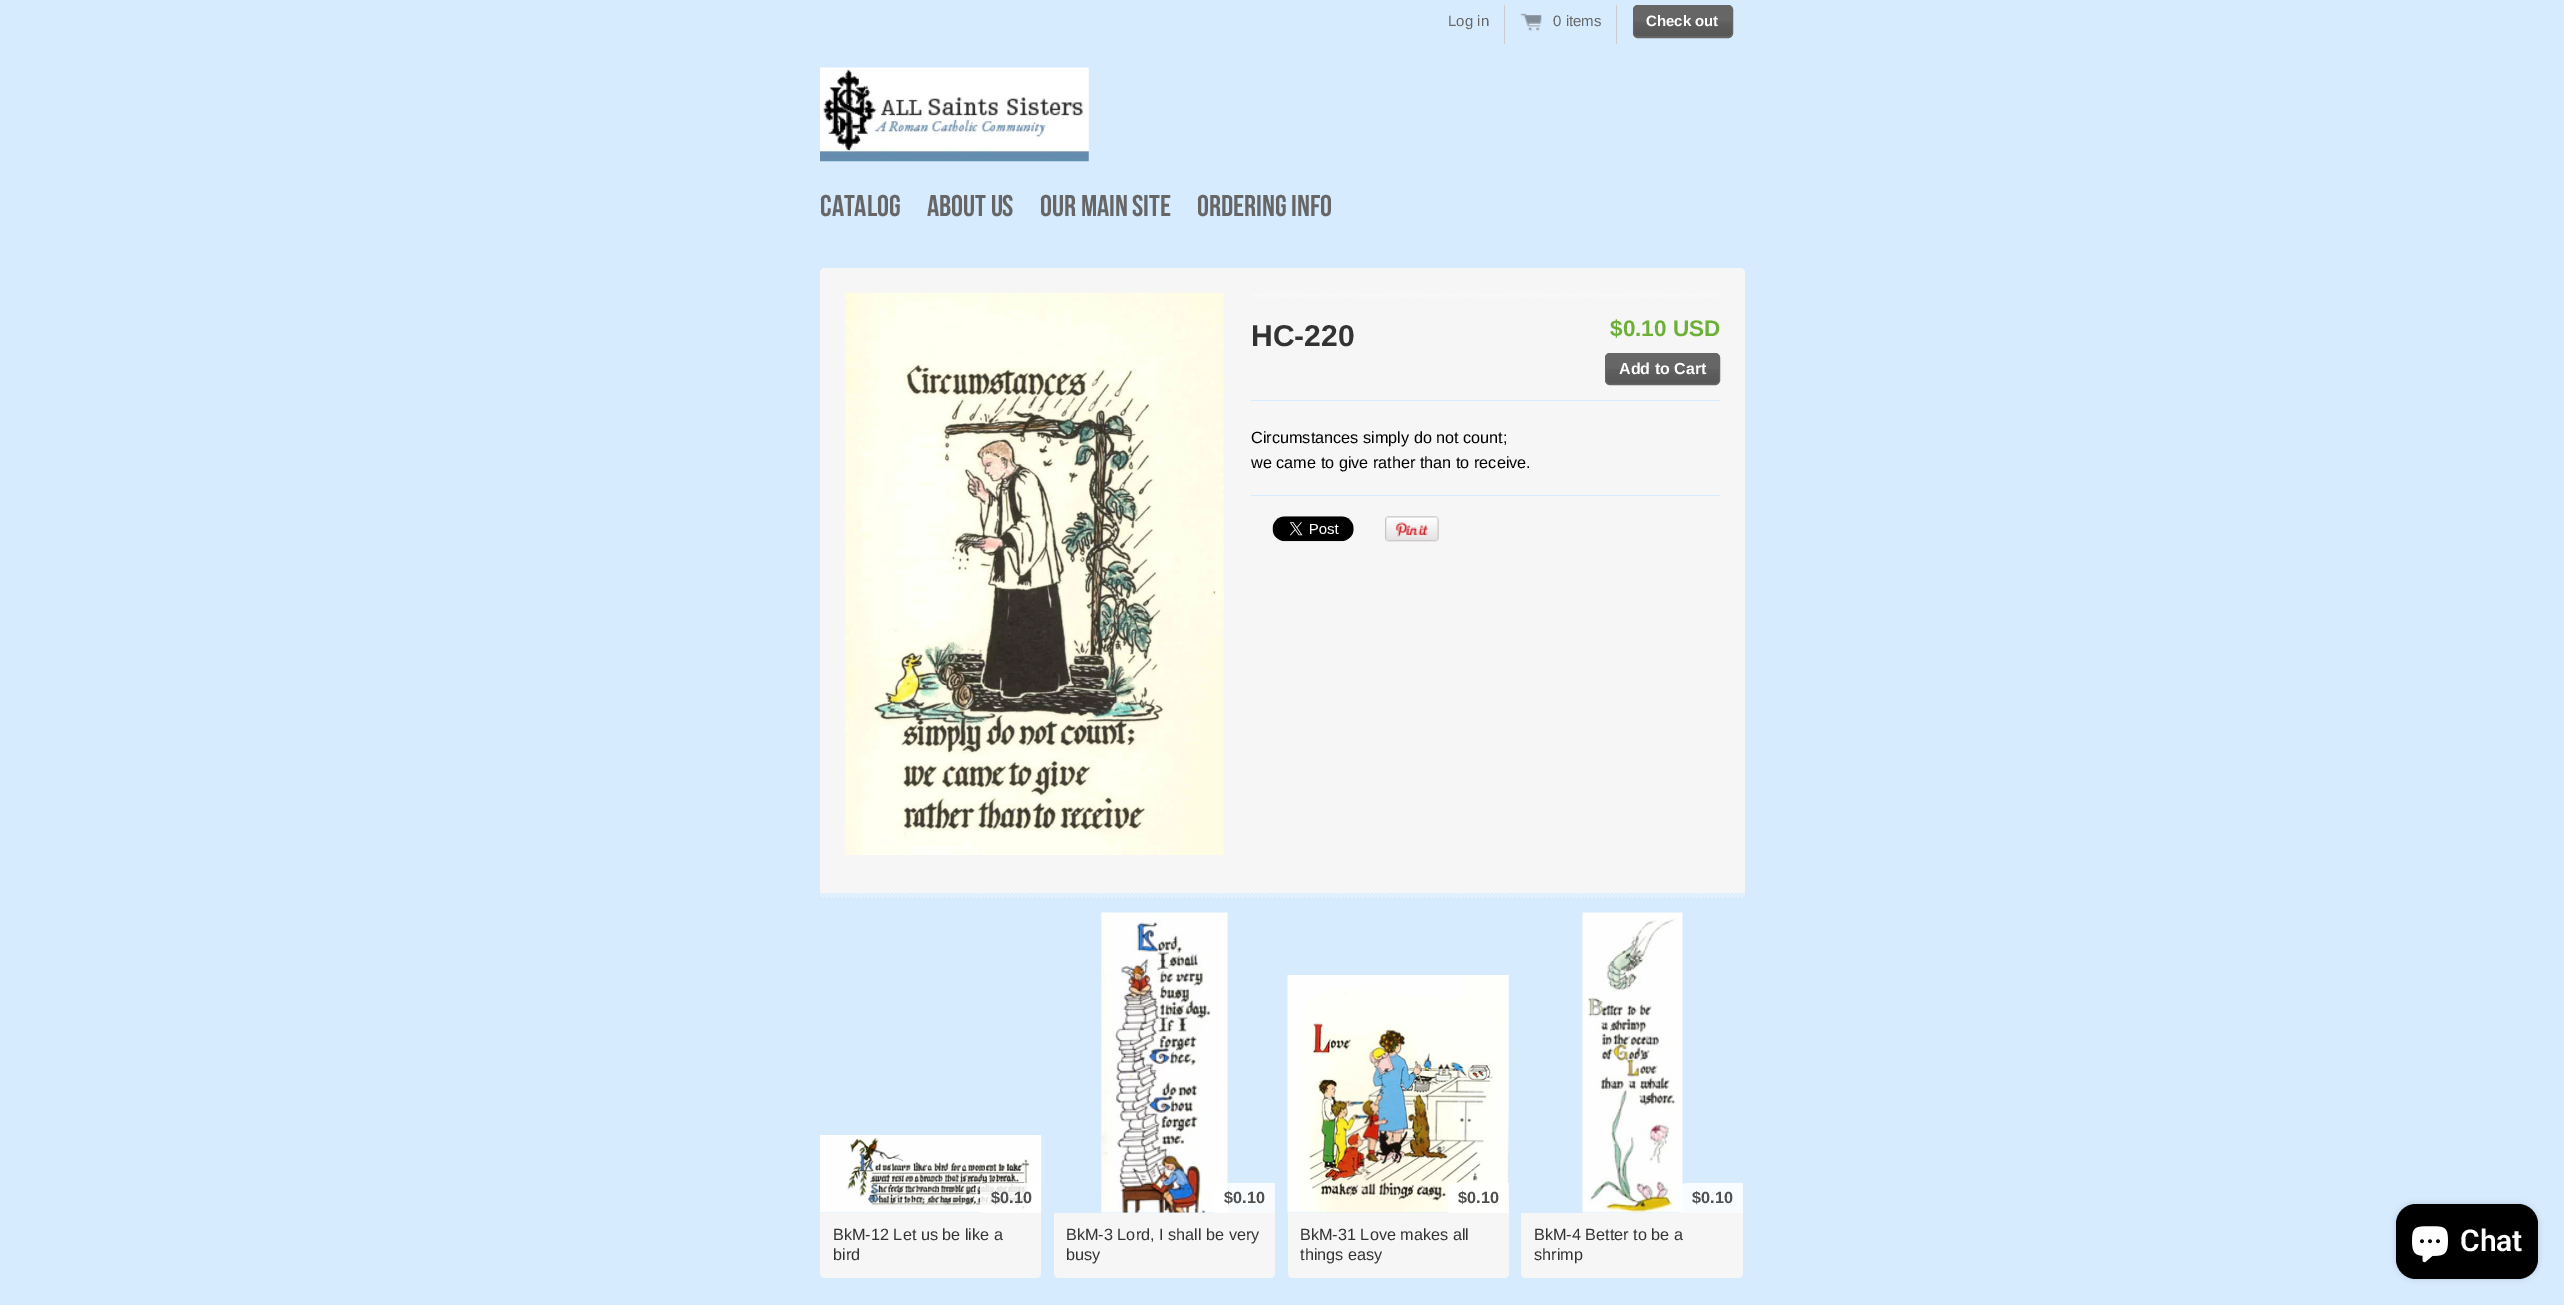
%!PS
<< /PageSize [2564 1305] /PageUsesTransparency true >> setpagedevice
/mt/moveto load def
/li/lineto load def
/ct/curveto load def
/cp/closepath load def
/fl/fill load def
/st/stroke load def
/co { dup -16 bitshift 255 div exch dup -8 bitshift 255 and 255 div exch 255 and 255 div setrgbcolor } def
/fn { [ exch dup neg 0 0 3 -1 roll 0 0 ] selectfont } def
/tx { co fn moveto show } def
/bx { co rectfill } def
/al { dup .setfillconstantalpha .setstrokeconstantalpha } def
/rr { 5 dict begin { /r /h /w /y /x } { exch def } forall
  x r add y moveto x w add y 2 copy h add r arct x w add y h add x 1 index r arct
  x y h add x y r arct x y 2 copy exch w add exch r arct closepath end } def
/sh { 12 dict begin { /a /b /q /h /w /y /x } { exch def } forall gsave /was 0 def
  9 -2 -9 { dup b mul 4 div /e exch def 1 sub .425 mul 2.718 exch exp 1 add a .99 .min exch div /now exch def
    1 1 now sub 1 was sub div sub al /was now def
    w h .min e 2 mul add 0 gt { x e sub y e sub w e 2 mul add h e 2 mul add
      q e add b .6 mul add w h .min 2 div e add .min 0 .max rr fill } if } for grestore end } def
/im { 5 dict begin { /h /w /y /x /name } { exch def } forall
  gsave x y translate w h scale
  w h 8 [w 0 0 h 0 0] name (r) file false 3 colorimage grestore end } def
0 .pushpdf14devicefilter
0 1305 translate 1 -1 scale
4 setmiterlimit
0 0 2564 1305 16#D7EBFF bx
1504 5 1 39 16#CCCCCC bx
1616 5 1 39 16#CCCCCC bx
(media/1.raw) 1520 12 22 19 im
16#666666 co
1633 5 100 33 5 rr fl
(media/2.raw) 1632 21 100 15 im
1633.5 5.5 99 32 4.5 rr st
(media/3.raw) 820 67 269 95 im
16#F6F6F6 co
825 268 mt 1740 268 li 1743 268 1745 270 1745 273 ct 1745 893 li 820 893 li 820 273 li 820 270 822 268 825 268 ct cp fl
(media/4.raw) 845 292 379 563 im
(media/5.raw) 1253 293 467 4 im
1251 400 469 1 16#D7EBFF bx
16#666666 co
1605 353 115 32 5 rr fl
(media/6.raw) 1605 369 115 15 im
1605.5 353.5 114 31 4.5 rr st
1251 495 469 1 16#D7EBFF bx
(media/7.raw) 1272 516 82 26 im
(media/8.raw) 1385 516 54 26 im
(media/9.raw) 820 893 925 5 im
(media/10.raw) 820 1135 222 78 im
0.85 al
16#FFFFFF co
985 1183 mt 1041 1183 li 1041 1213 li 980 1213 li 980 1188 li 980 1185 982 1183 985 1183 ct cp fl
1 al
16#F6F6F6 co
820 1213 mt 1041 1213 li 1041 1273 li 1041 1276 1039 1278 1036 1278 ct 825 1278 li 822 1278 820 1276 820 1273 ct cp fl
(media/11.raw) 1101 912 127 301 im
0.85 al
16#FFFFFF co
1219 1183 mt 1275 1183 li 1275 1213 li 1214 1213 li 1214 1188 li 1214 1185 1216 1183 1219 1183 ct cp fl
1 al
16#F6F6F6 co
1054 1213 mt 1275 1213 li 1275 1273 li 1275 1276 1273 1278 1270 1278 ct 1059 1278 li 1056 1278 1054 1276 1054 1273 ct cp fl
(media/12.raw) 1287 975 222 238 im
0.85 al
16#FFFFFF co
1453 1183 mt 1509 1183 li 1509 1213 li 1448 1213 li 1448 1188 li 1448 1185 1450 1183 1453 1183 ct cp fl
1 al
16#F6F6F6 co
1288 1213 mt 1509 1213 li 1509 1273 li 1509 1276 1507 1278 1504 1278 ct 1293 1278 li 1290 1278 1288 1276 1288 1273 ct cp fl
(media/13.raw) 1582 912 101 301 im
0.85 al
16#FFFFFF co
1686 1183 mt 1743 1183 li 1743 1213 li 1681 1213 li 1681 1188 li 1681 1185 1683 1183 1686 1183 ct cp fl
1 al
16#F6F6F6 co
1521 1213 mt 1743 1213 li 1743 1273 li 1743 1276 1741 1278 1738 1278 ct 1526 1278 li 1523 1278 1521 1276 1521 1273 ct cp fl
16#000000 co
2396 1204 142 75 20 3 .15 sh
2396 1204 142 75 20 rr fl
(media/14.raw) 2412 1226 36 37 im
(Log in) 1448 26 /LiberationSans-Regular 15 16#666666 tx
(0 items) 1553 26 /LiberationSans-Regular 15 16#666666 tx
(Check out) 1646 26 /LiberationSans-Bold 15 16#FFFFFF tx
(Catalog) 820 216 /BebasNeue-Regular 30 16#666666 tx
(About Us) 927 216 /BebasNeue-Regular 30 16#666666 tx
(Our Main Site) 1040 216 /BebasNeue-Regular 30 16#666666 tx
(Ordering Info) 1197 216 /BebasNeue-Regular 30 16#666666 tx
(HC-220) 1251 346 /LiberationSans-Bold 30 16#333333 tx
($0.10 USD) 1610 336 /LiberationSans-Bold 22.5 16#6DB038 tx
(Add to Cart) 1619 374 /LiberationSans-Bold 16 16#FFFFFF tx
(Circumstances simply do not count;) 1251 443 /LiberationSans-Regular 16.25 16#000000 tx
(we came to give rather than to receive.) 1251 468 /LiberationSans-Regular 16.25 16#000000 tx
($0.10) 991 1203 /LiberationSans-Bold 16.25 16#505050 tx
(BkM-12 Let us be like a) 833 1240 /LiberationSans-Regular 16.25 16#333333 tx
(bird) 833 1260 /LiberationSans-Regular 16.25 16#333333 tx
($0.10) 1224 1203 /LiberationSans-Bold 16.25 16#505050 tx
(BkM-3 Lord, I shall be very) 1066 1240 /LiberationSans-Regular 16.25 16#333333 tx
(busy) 1066 1260 /LiberationSans-Regular 16.25 16#333333 tx
($0.10) 1458 1203 /LiberationSans-Bold 16.25 16#505050 tx
(BkM-31 Love makes all) 1300 1240 /LiberationSans-Regular 16.25 16#333333 tx
(things easy) 1300 1260 /LiberationSans-Regular 16.25 16#333333 tx
($0.10) 1692 1203 /LiberationSans-Bold 16.25 16#505050 tx
(BkM-4 Better to be a) 1534 1240 /LiberationSans-Regular 16.25 16#333333 tx
(shrimp) 1534 1260 /LiberationSans-Regular 16.25 16#333333 tx
(Chat) 2460 1251 /Roboto-SemiBold 30 16#FFFFFF tx
.poppdf14devicefilter showpage
